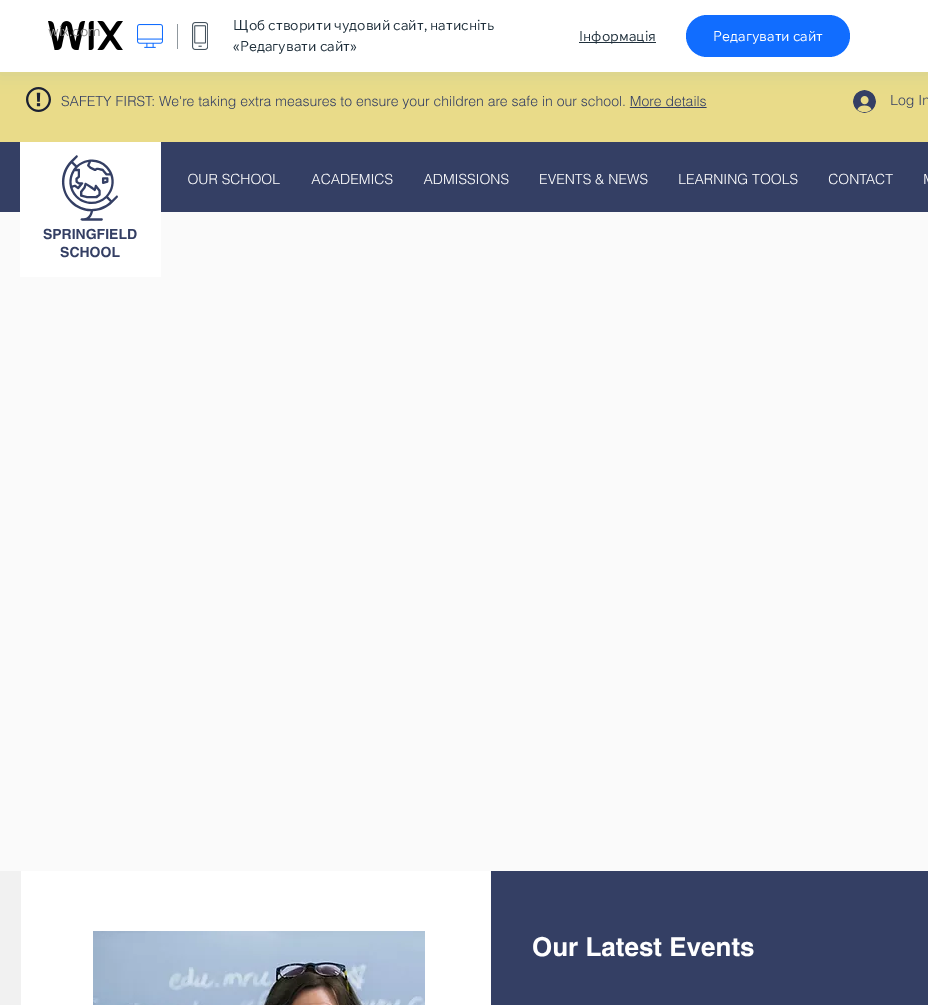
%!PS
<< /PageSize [928 1005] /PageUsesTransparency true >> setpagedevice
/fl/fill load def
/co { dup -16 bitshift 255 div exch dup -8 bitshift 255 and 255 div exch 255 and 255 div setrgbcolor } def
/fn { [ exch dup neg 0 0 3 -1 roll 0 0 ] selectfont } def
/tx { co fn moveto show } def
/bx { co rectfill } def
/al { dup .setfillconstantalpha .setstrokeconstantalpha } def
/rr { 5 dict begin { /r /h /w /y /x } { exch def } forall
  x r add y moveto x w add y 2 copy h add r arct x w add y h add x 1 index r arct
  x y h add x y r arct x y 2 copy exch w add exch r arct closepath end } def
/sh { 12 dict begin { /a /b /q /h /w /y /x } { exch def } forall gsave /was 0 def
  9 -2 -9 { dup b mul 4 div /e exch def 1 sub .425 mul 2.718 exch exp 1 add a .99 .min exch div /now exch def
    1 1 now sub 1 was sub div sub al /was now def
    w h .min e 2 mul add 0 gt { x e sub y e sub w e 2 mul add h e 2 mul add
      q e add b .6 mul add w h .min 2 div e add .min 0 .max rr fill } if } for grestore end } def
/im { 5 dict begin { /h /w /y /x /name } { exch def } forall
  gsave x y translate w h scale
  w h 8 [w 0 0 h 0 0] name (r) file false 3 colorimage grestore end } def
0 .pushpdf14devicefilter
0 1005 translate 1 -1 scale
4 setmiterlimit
0 0 928 1005 16#FFFFFF bx
(media/4.raw) 0 72 928 933 im
16#81A2B6 co
0 2 928 72 0 9 .2 sh
0 0 928 72 16#FFFFFF bx
(media/1.raw) 48 21 75 29 im
(media/2.raw) 137 24 26 24 im
177 24 1 25 16#90989E bx
(media/3.raw) 192 22 16 28 im
579 42 77 1 16#20303C bx
16#116DFF co
686 15 164 42 21 rr fl
(wix.com) 48 36 /WixMadeforText-Regular 14 16#8F8F8F tx
(Щоб створити чудовий сайт, натисніть) 233 30 /WixMadeforText-Regular 14 16#20303C tx
(«Редагувати сайт») 233 51 /WixMadeforText-Regular 14 16#20303C tx
(Інформація) 579 41 /WixMadeforText-Regular 14 16#20303C tx
(Редагувати сайт) 713 41 /WixMadeforText-Regular 14 16#FFFFFF tx
.poppdf14devicefilter showpage
